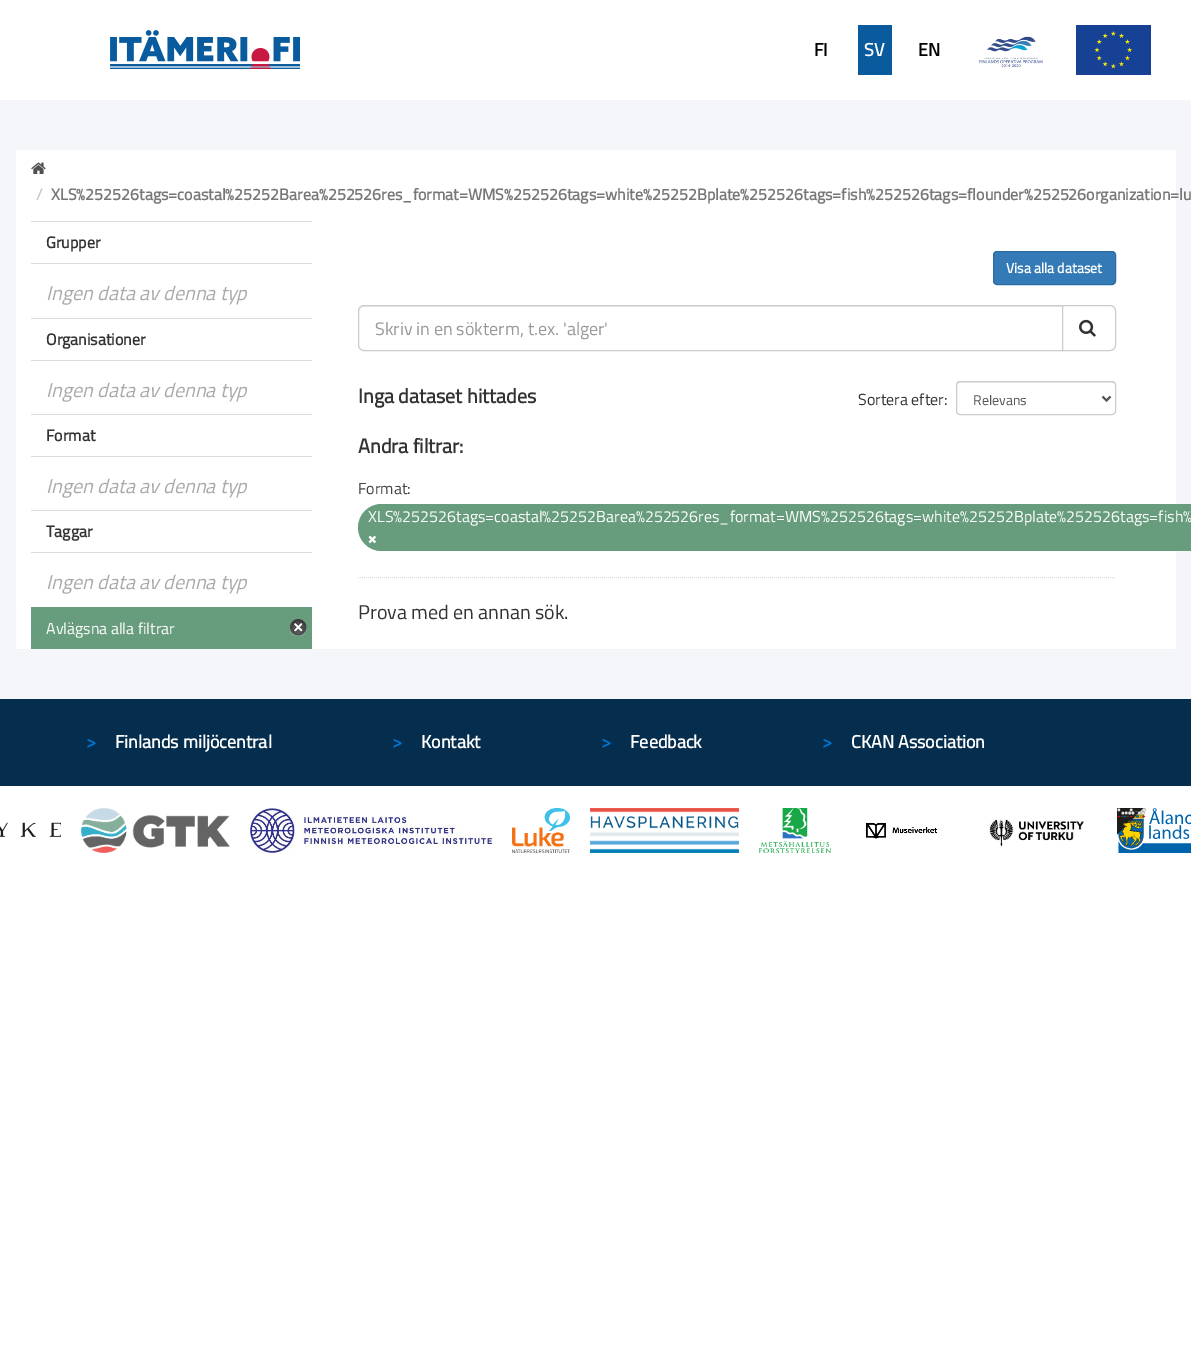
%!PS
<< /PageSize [1191 1353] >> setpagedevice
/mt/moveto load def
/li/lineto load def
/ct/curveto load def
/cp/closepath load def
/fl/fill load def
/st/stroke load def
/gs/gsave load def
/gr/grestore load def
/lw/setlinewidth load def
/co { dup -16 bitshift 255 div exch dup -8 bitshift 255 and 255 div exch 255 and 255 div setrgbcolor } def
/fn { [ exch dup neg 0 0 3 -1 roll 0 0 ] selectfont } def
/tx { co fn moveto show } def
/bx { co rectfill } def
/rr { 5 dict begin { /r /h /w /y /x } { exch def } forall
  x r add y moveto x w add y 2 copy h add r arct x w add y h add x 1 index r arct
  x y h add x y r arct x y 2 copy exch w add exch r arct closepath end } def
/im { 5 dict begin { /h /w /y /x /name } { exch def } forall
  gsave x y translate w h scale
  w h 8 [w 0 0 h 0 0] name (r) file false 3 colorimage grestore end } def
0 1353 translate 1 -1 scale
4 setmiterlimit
0 0 1191 1353 16#FFFFFF bx
(media/1.raw) 110 30 190 39 im
858 25 34 50 16#095B9D bx
(media/2.raw) 979 36 64 32 im
(media/3.raw) 1076 25 75 50 im
0 100 1191 599 16#F5F6FA bx
16 150 1160 499 16#FFFFFF bx
(media/4.raw) 31 162 15 12 im
31 221 281 1 16#DDDDDD bx
31 263 281 1 16#DDDDDD bx
31 318 281 1 16#DDDDDD bx
31 360 281 1 16#DDDDDD bx
31 414 281 1 16#DDDDDD bx
31 456 281 1 16#DDDDDD bx
31 510 281 1 16#DDDDDD bx
31 552 281 1 16#DDDDDD bx
31 607 281 42 16#679D7D bx
(media/5.raw) 290 619 17 17 im
16#337AB7 co
993.5 251.5 122 33 3.5 rr gs fl gr
16#2E6DA4 co
st
16#DDDDDD co
[1 1] 0 setdash
358 577.5 mt 1116 577.5 li st
16#ECECEC co
364 307 mt 1062 307 li 1062 306 li 364 306 li 361 306 359 309 359 312 ct 359 309 361 307 364 307 ct cp fl
16#CCCCCC co
[] 0 setdash
364 305.5 mt 1062.5 305.5 li 1062.5 350.5 li 364 350.5 li 361 350.5 358.5 348 358.5 345 ct 358.5 311 li 358.5 308 361 305.5 364 305.5 ct cp st
16#FFFFFF co
1062.5 305.5 mt 1110 305.5 li 1113 305.5 1115.5 308 1115.5 311 ct 1115.5 345 li 1115.5 348 1113 350.5 1110 350.5 ct 1062.5 350.5 li cp gs fl gr
16#CCCCCC co
st
(media/6.raw) 1079 319 17 18 im
16#ECECEC co
960 383 mt 1112 383 li 1114 383 1115 384 1115 386 ct 1115 384 1114 382 1112 382 ct 959 382 li 957 382 957 384 957 386 ct 957 384 958 383 960 383 ct cp fl
16#CCCCCC co
956.5 381.5 159 33 3.5 rr st
16#555555 co
2 lw
1102.5 396.5 mt 1106.5 400.5 li 1110.5 396.5 li st
16#679D7D co
358 504 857 47 23.5 rr fl
(media/7.raw) 368 535 8 9 im
0 699 1191 87 16#052D4D bx
(media/8.raw) 0 822 61 15 im
(media/9.raw) 81 808 149 45 im
(media/10.raw) 250 808 242 45 im
(media/11.raw) 512 808 58 45 im
(media/12.raw) 590 808 149 45 im
(media/13.raw) 759 808 72 45 im
(media/14.raw) 865 822 73 17 im
(media/15.raw) 989 819 95 28 im
(media/16.raw) 1117 808 74 45 im
(FI) 814 56 /TitilliumWeb-Bold 18 16#000000 tx
(SV) 864 56 /TitilliumWeb-Bold 18 16#FFFFFF tx
(EN) 918 56 /TitilliumWeb-Bold 18 16#000000 tx
(/) 36 200 /TitilliumWeb-Bold 16 16#CCCCCC tx
(XLS%252526tags=coastal%25252Barea%252526res_format=WMS%252526tags=white%25252Bplate%252526tags=fish%252526tags=flounder%252526organization=lu) 51 200 /TitilliumWeb-Bold 16 16#777777 tx
(Grupper) 46 248 /TitilliumWeb-Bold 16 16#333333 tx
(Ingen data av denna typ) 46 300 /TitilliumWeb-Italic 20 16#AAAAAA tx
(Organisationer) 46 345 /TitilliumWeb-Bold 16 16#333333 tx
(Ingen data av denna typ) 46 397 /TitilliumWeb-Italic 20 16#AAAAAA tx
(Format) 46 441 /TitilliumWeb-Bold 16 16#333333 tx
(Ingen data av denna typ) 46 493 /TitilliumWeb-Italic 20 16#AAAAAA tx
(Taggar) 46 537 /TitilliumWeb-Bold 16 16#333333 tx
(Ingen data av denna typ) 46 589 /TitilliumWeb-Italic 20 16#AAAAAA tx
(Avlägsna alla filtrar) 46 634 /TitilliumWeb-Regular 16 16#FFFFFF tx
(Visa alla dataset) 1006 273 /TitilliumWeb-Bold 14 16#FFFFFF tx
(Skriv in en sökterm, t.ex. 'alger') 375 335 /TitilliumWeb-Regular 18 16#999999 tx
(Inga dataset hittades) 358 403 /TitilliumWeb-Bold 20 16#333333 tx
(Sortera efter:) 858 405 /TitilliumWeb-Regular 16 16#333333 tx
(Relevans) 973 405 /TitilliumWeb-Regular 14 16#555555 tx
(Andra filtrar:) 358 453 /TitilliumWeb-Bold 20 16#333333 tx
(Format:) 358 494 /TitilliumWeb-Regular 16 16#444444 tx
(XLS%252526tags=coastal%25252Barea%252526res_format=WMS%252526tags=white%25252Bplate%252526tags=fish%) 368 522 /TitilliumWeb-Regular 16 16#FFFFFF tx
(Prova med en annan sök.) 358 619 /TitilliumWeb-Regular 20 16#333333 tx
(>) 86 748 /TitilliumWeb-Bold 18 16#0074D0 tx
(Finlands miljöcentral) 115 748 /TitilliumWeb-Bold 18 16#FFFFFF tx
(>) 392 748 /TitilliumWeb-Bold 18 16#0074D0 tx
(Kontakt) 421 748 /TitilliumWeb-Bold 18 16#FFFFFF tx
(>) 601 748 /TitilliumWeb-Bold 18 16#0074D0 tx
(Feedback) 630 748 /TitilliumWeb-Bold 18 16#FFFFFF tx
(>) 822 748 /TitilliumWeb-Bold 18 16#0074D0 tx
(CKAN Association) 851 748 /TitilliumWeb-Bold 18 16#FFFFFF tx
showpage
